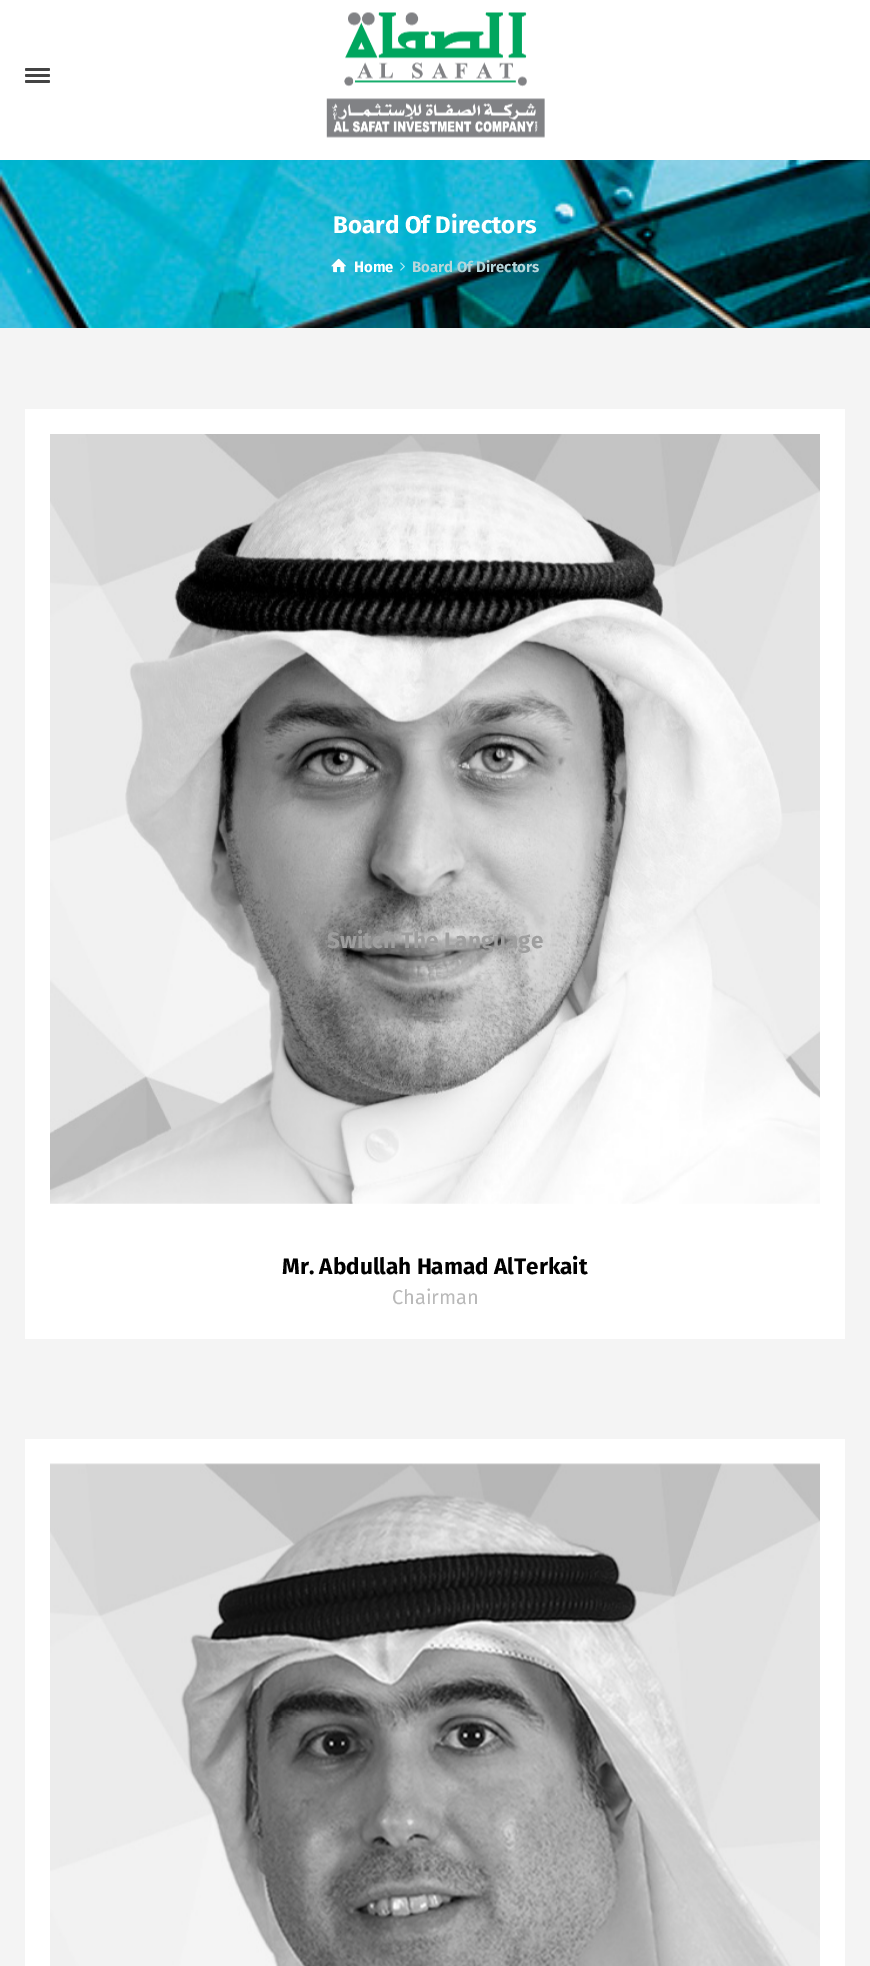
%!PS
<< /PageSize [870 1966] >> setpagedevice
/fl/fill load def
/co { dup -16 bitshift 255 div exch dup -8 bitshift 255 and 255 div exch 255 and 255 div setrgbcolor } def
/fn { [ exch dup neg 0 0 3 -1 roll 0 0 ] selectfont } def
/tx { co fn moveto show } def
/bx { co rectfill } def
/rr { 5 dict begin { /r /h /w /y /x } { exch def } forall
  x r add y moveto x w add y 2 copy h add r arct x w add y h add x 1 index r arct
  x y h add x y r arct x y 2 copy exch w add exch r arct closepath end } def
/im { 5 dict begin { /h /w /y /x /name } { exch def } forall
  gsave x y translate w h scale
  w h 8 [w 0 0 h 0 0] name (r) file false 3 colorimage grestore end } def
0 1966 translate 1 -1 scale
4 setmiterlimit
0 0 870 1966 16#FFFFFF bx
16#444444 co
25 68 25 3 1.5 rr fl
25 74 25 3 1.5 rr fl
25 80 25 3 1.5 rr fl
(media/1.raw) 326 12 219 126 im
(media/2.raw) 0 160 870 168 im
(media/3.raw) 331 258 15 15 im
(media/4.raw) 400 262 5 9 im
0 328 870 1638 16#F4F4F4 bx
25 409 820 930 16#FFFFFF bx
(media/5.raw) 50 434 770 770 im
25 1439 820 527 16#FFFFFF bx
(media/6.raw) 50 1463 770 503 im
(Board Of Directors) 333 233 /FiraSans-Bold 24 16#FFFFFF tx
(Home) 354 272 /FiraSans-Bold 15 16#FFFFFF tx
(Board Of Directors) 412 272 /FiraSans-Bold 15 16#B7D6DB tx
(Mr. Abdullah Hamad AlTerkait) 282 1274 /FiraSans-Bold 22.5 16#000000 tx
(Chairman) 392 1304 /FiraSans-Regular 20 16#B9B9B9 tx
(Switch The Language) 327 948 /FiraSans-Bold 22.5 16#9E9E9E tx
showpage
